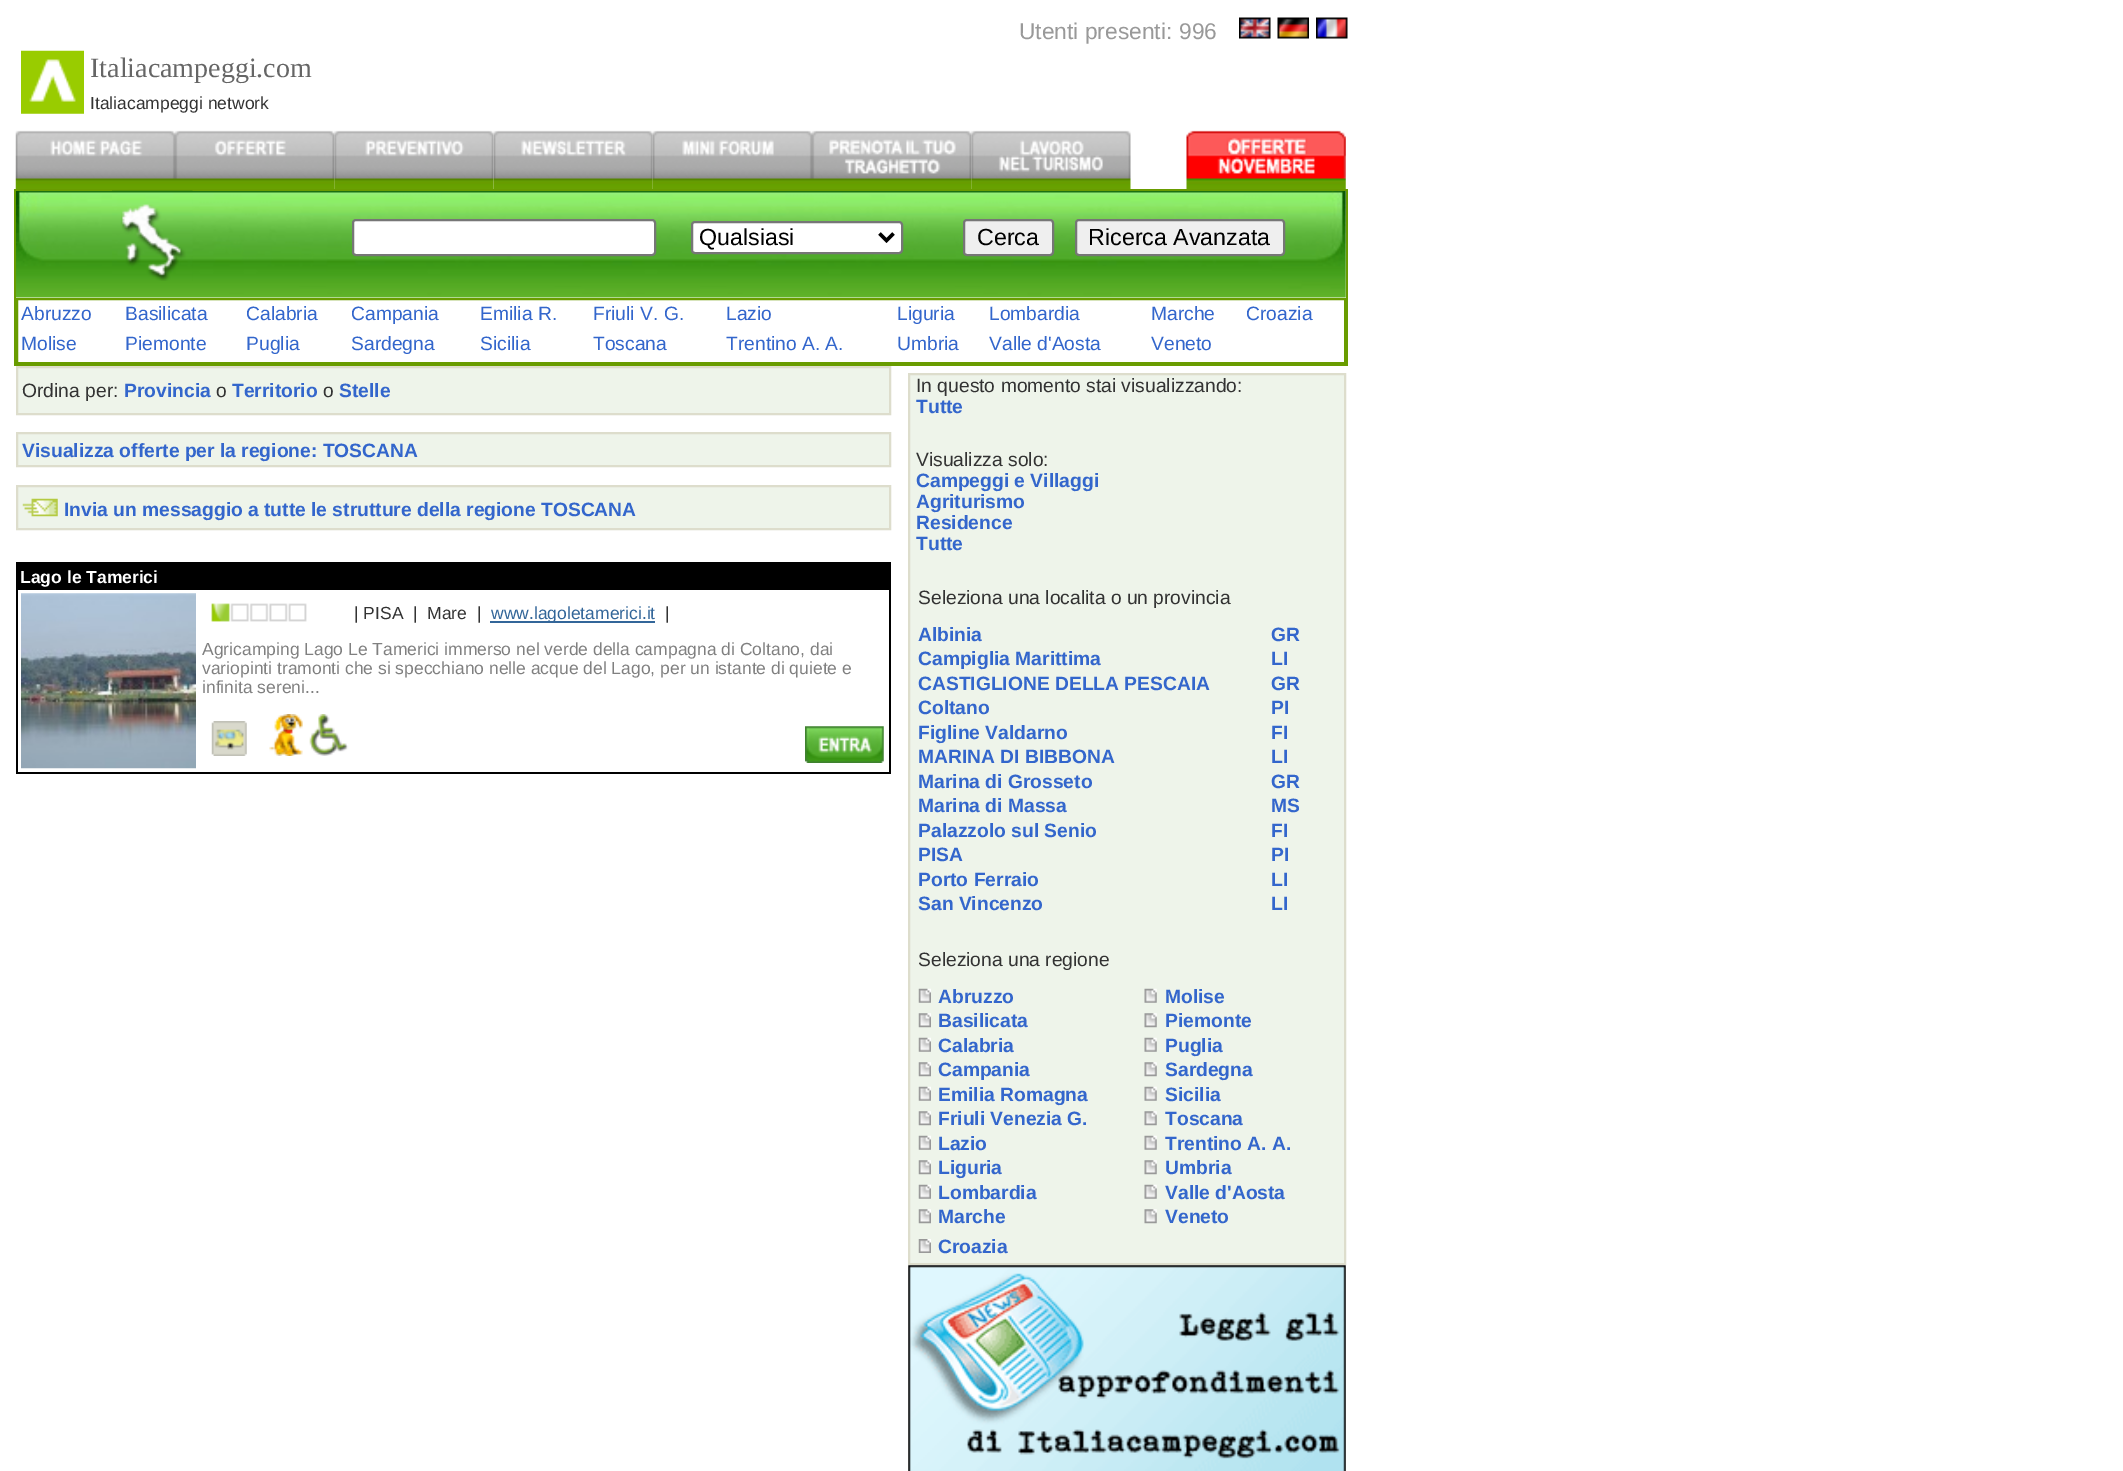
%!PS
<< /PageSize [2123 1471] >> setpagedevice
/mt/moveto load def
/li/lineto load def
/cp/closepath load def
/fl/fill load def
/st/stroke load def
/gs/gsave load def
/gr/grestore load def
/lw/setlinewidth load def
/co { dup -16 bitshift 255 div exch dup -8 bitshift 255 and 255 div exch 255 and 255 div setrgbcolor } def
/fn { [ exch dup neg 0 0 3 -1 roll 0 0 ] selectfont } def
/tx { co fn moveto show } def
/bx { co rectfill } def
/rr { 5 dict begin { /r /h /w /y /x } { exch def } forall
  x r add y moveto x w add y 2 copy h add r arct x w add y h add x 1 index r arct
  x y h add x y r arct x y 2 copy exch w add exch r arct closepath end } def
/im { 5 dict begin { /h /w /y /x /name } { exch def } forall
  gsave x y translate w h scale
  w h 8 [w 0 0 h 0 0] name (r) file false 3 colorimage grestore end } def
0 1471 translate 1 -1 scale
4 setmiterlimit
0 0 2123 1471 16#FFFFFF bx
(media/1.raw) 1239 17 32 22 im
(media/2.raw) 1277 17 32 22 im
(media/3.raw) 1316 17 32 22 im
(media/4.raw) 21 50 63 64 im
(media/5.raw) 15 130 160 59 im
(media/6.raw) 175 130 160 59 im
(media/7.raw) 334 130 160 59 im
(media/8.raw) 493 130 160 59 im
(media/9.raw) 652 130 160 59 im
(media/10.raw) 812 130 160 59 im
(media/11.raw) 971 130 160 59 im
(media/12.raw) 1186 130 160 59 im
14 189 1334 2 16#699C00 bx
1346 189 2 177 16#699C00 bx
14 364 1334 2 16#699C00 bx
14 189 2 177 16#699C00 bx
(media/13.raw) 16 191 1330 107 im
(media/14.raw) 112 190 81 91 im
16#FFFFFF co
353 220 302 35 3 rr gs fl gr
16#767676 co
2 lw
st
16#FFFFFF co
692 222 210 31 3 rr gs fl gr
16#767676 co
st
16#000000 co
3.5 lw
879.5 233.5 mt 886.5 240.5 li 893.5 233.5 li st
16#EFEFEF co
964 220 89 35 3 rr gs fl gr
16#767676 co
2 lw
st
16#EFEFEF co
1076 220 208 35 3 rr gs fl gr
16#767676 co
st
16#699C00 co
17 299 1328 64 rectstroke
16#EEF4EA co
17 367 mt 890 367 li 890 414 li 17 414 li cp gs fl gr
16#DDDDCC co
st
16#EEF4EA co
17 433 mt 890 433 li 890 466 li 17 466 li cp gs fl gr
16#DDDDCC co
st
16#EEF4EA co
17 486 mt 890 486 li 890 529 li 17 529 li cp gs fl gr
16#DDDDCC co
st
(media/15.raw) 22 498 36 19 im
16 562 875 2 16#000000 bx
889 562 2 212 16#000000 bx
16 772 875 2 16#000000 bx
16 562 2 212 16#000000 bx
18 564 871 26 16#000000 bx
(media/16.raw) 21 593 175 176 im
(media/17.raw) 211 603 96 19 im
490 621 165 2 16#336699 bx
(media/18.raw) 211 721 36 35 im
(media/19.raw) 269 714 34 42 im
(media/20.raw) 309 714 40 42 im
(media/21.raw) 805 726 79 37 im
16#EEF4EA co
909 374 mt 1345 374 li 1345 1264 li 909 1264 li cp gs fl gr
16#DDDDCC co
st
(media/22.raw) 918 988 13 15 im
(media/23.raw) 1144 988 13 15 im
(media/24.raw) 918 1013 13 15 im
(media/25.raw) 1144 1013 13 15 im
(media/22.raw) 918 1037 13 15 im
(media/23.raw) 1144 1037 13 15 im
(media/24.raw) 918 1062 13 15 im
(media/25.raw) 1144 1062 13 15 im
(media/22.raw) 918 1086 13 15 im
(media/23.raw) 1144 1086 13 15 im
(media/24.raw) 918 1111 13 15 im
(media/25.raw) 1144 1111 13 15 im
(media/22.raw) 918 1135 13 15 im
(media/23.raw) 1144 1135 13 15 im
(media/24.raw) 918 1160 13 15 im
(media/25.raw) 1144 1160 13 15 im
(media/22.raw) 918 1184 13 15 im
(media/23.raw) 1144 1184 13 15 im
(media/24.raw) 918 1209 13 15 im
(media/25.raw) 1144 1209 13 15 im
(media/26.raw) 918 1239 13 14 im
(media/27.raw) 908 1265 438 206 im
(Utenti presenti:) 1019 39 /LiberationSans-Regular 22.75 16#999999 tx
(996) 1179 39 /LiberationSans-Regular 22.75 16#999999 tx
(Italiacampeggi.com) 90 77 /LiberationSerif-Regular 28 16#666666 tx
(Italiacampeggi network) 90 109 /LiberationSans-Regular 17.5 16#333333 tx
(Qualsiasi) 699 245 /LiberationSans-Regular 23.25 16#000000 tx
(Cerca) 977 245 /LiberationSans-Regular 23.25 16#000000 tx
(Ricerca Avanzata) 1088 245 /LiberationSans-Regular 23.25 16#000000 tx
(Abruzzo) 21 320 /LiberationSans-Regular 19.25 16#3366CC tx
(Basilicata) 125 320 /LiberationSans-Regular 19.25 16#3366CC tx
(Calabria) 246 320 /LiberationSans-Regular 19.25 16#3366CC tx
(Campania) 351 320 /LiberationSans-Regular 19.25 16#3366CC tx
(Emilia R.) 480 320 /LiberationSans-Regular 19.25 16#3366CC tx
(Friuli V. G.) 593 320 /LiberationSans-Regular 19.25 16#3366CC tx
(Lazio) 726 320 /LiberationSans-Regular 19.25 16#3366CC tx
(Liguria) 897 320 /LiberationSans-Regular 19.25 16#3366CC tx
(Lombardia) 989 320 /LiberationSans-Regular 19.25 16#3366CC tx
(Marche) 1151 320 /LiberationSans-Regular 19.25 16#3366CC tx
(Croazia) 1246 320 /LiberationSans-Regular 19.25 16#3366CC tx
(Molise) 21 350 /LiberationSans-Regular 19.25 16#3366CC tx
(Piemonte) 125 350 /LiberationSans-Regular 19.25 16#3366CC tx
(Puglia) 246 350 /LiberationSans-Regular 19.25 16#3366CC tx
(Sardegna) 351 350 /LiberationSans-Regular 19.25 16#3366CC tx
(Sicilia) 480 350 /LiberationSans-Regular 19.25 16#3366CC tx
(Toscana) 593 350 /LiberationSans-Regular 19.25 16#3366CC tx
(Trentino A. A.) 726 350 /LiberationSans-Regular 19.25 16#3366CC tx
(Umbria) 897 350 /LiberationSans-Regular 19.25 16#3366CC tx
(Valle d'Aosta) 989 350 /LiberationSans-Regular 19.25 16#3366CC tx
(Veneto) 1151 350 /LiberationSans-Regular 19.25 16#3366CC tx
(Ordina per:) 22 397 /LiberationSans-Regular 19.25 16#333333 tx
(Provincia) 124 397 /LiberationSans-Bold 19.25 16#3366CC tx
(o) 216 397 /LiberationSans-Regular 19.25 16#333333 tx
(Territorio) 232 397 /LiberationSans-Bold 19.25 16#3366CC tx
(o) 323 397 /LiberationSans-Regular 19.25 16#333333 tx
(Stelle) 339 397 /LiberationSans-Bold 19.25 16#3366CC tx
(Visualizza offerte per la regione: TOSCANA) 22 457 /LiberationSans-Bold 19.25 16#3366CC tx
(Invia un messaggio a tutte le strutture della regione TOSCANA) 64 516 /LiberationSans-Bold 19.25 16#3366CC tx
(Lago le Tamerici) 20 583 /LiberationSans-Bold 17.5 16#FFFFFF tx
(| PISA) 354 619 /LiberationSans-Regular 17.5 16#333333 tx
(|) 413 619 /LiberationSans-Regular 17.5 16#333333 tx
(Mare) 427 619 /LiberationSans-Regular 17.5 16#333333 tx
(|) 477 619 /LiberationSans-Regular 17.5 16#333333 tx
(www.lagoletamerici.it) 491 619 /LiberationSans-Regular 17.5 16#336699 tx
(|) 665 619 /LiberationSans-Regular 17.5 16#333333 tx
(Agricamping Lago Le Tamerici immerso nel verde della campagna di Coltano, dai) 202 655 /LiberationSans-Regular 17.5 16#808080 tx
(variopinti tramonti che si specchiano nelle acque del Lago, per un istante di quiete e) 202 674 /LiberationSans-Regular 17.5 16#808080 tx
(infinita sereni...) 202 693 /LiberationSans-Regular 17.5 16#808080 tx
(In questo momento stai visualizzando:) 916 392 /LiberationSans-Regular 19.25 16#333333 tx
(Tutte) 916 413 /LiberationSans-Bold 19.25 16#3366CC tx
(Visualizza solo:) 916 466 /LiberationSans-Regular 19.25 16#333333 tx
(Campeggi e Villaggi) 916 487 /LiberationSans-Bold 19.25 16#3366CC tx
(Agriturismo) 916 508 /LiberationSans-Bold 19.25 16#3366CC tx
(Residence) 916 529 /LiberationSans-Bold 19.25 16#3366CC tx
(Tutte) 916 550 /LiberationSans-Bold 19.25 16#3366CC tx
(Seleziona una localita o un provincia) 918 604 /LiberationSans-Regular 19.25 16#333333 tx
(Albinia) 918 641 /LiberationSans-Bold 19.25 16#3366CC tx
(GR) 1271 641 /LiberationSans-Bold 19.25 16#3366CC tx
(Campiglia Marittima) 918 665 /LiberationSans-Bold 19.25 16#3366CC tx
(LI) 1271 665 /LiberationSans-Bold 19.25 16#3366CC tx
(CASTIGLIONE DELLA PESCAIA) 918 690 /LiberationSans-Bold 19.25 16#3366CC tx
(GR) 1271 690 /LiberationSans-Bold 19.25 16#3366CC tx
(Coltano) 918 714 /LiberationSans-Bold 19.25 16#3366CC tx
(PI) 1271 714 /LiberationSans-Bold 19.25 16#3366CC tx
(Figline Valdarno) 918 739 /LiberationSans-Bold 19.25 16#3366CC tx
(FI) 1271 739 /LiberationSans-Bold 19.25 16#3366CC tx
(MARINA DI BIBBONA) 918 763 /LiberationSans-Bold 19.25 16#3366CC tx
(LI) 1271 763 /LiberationSans-Bold 19.25 16#3366CC tx
(Marina di Grosseto) 918 788 /LiberationSans-Bold 19.25 16#3366CC tx
(GR) 1271 788 /LiberationSans-Bold 19.25 16#3366CC tx
(Marina di Massa) 918 812 /LiberationSans-Bold 19.25 16#3366CC tx
(MS) 1271 812 /LiberationSans-Bold 19.25 16#3366CC tx
(Palazzolo sul Senio) 918 837 /LiberationSans-Bold 19.25 16#3366CC tx
(FI) 1271 837 /LiberationSans-Bold 19.25 16#3366CC tx
(PISA) 918 861 /LiberationSans-Bold 19.25 16#3366CC tx
(PI) 1271 861 /LiberationSans-Bold 19.25 16#3366CC tx
(Porto Ferraio) 918 886 /LiberationSans-Bold 19.25 16#3366CC tx
(LI) 1271 886 /LiberationSans-Bold 19.25 16#3366CC tx
(San Vincenzo) 918 910 /LiberationSans-Bold 19.25 16#3366CC tx
(LI) 1271 910 /LiberationSans-Bold 19.25 16#3366CC tx
(Seleziona una regione) 918 966 /LiberationSans-Regular 19.25 16#333333 tx
(Abruzzo) 938 1003 /LiberationSans-Bold 19.25 16#3366CC tx
(Molise) 1165 1003 /LiberationSans-Bold 19.25 16#3366CC tx
(Basilicata) 938 1027 /LiberationSans-Bold 19.25 16#3366CC tx
(Piemonte) 1165 1027 /LiberationSans-Bold 19.25 16#3366CC tx
(Calabria) 938 1052 /LiberationSans-Bold 19.25 16#3366CC tx
(Puglia) 1165 1052 /LiberationSans-Bold 19.25 16#3366CC tx
(Campania) 938 1076 /LiberationSans-Bold 19.25 16#3366CC tx
(Sardegna) 1165 1076 /LiberationSans-Bold 19.25 16#3366CC tx
(Emilia Romagna) 938 1101 /LiberationSans-Bold 19.25 16#3366CC tx
(Sicilia) 1165 1101 /LiberationSans-Bold 19.25 16#3366CC tx
(Friuli Venezia G.) 938 1125 /LiberationSans-Bold 19.25 16#3366CC tx
(Toscana) 1165 1125 /LiberationSans-Bold 19.25 16#3366CC tx
(Lazio) 938 1150 /LiberationSans-Bold 19.25 16#3366CC tx
(Trentino A. A.) 1165 1150 /LiberationSans-Bold 19.25 16#3366CC tx
(Liguria) 938 1174 /LiberationSans-Bold 19.25 16#3366CC tx
(Umbria) 1165 1174 /LiberationSans-Bold 19.25 16#3366CC tx
(Lombardia) 938 1199 /LiberationSans-Bold 19.25 16#3366CC tx
(Valle d'Aosta) 1165 1199 /LiberationSans-Bold 19.25 16#3366CC tx
(Marche) 938 1223 /LiberationSans-Bold 19.25 16#3366CC tx
(Veneto) 1165 1223 /LiberationSans-Bold 19.25 16#3366CC tx
(Croazia) 938 1253 /LiberationSans-Bold 19.25 16#3366CC tx
showpage
